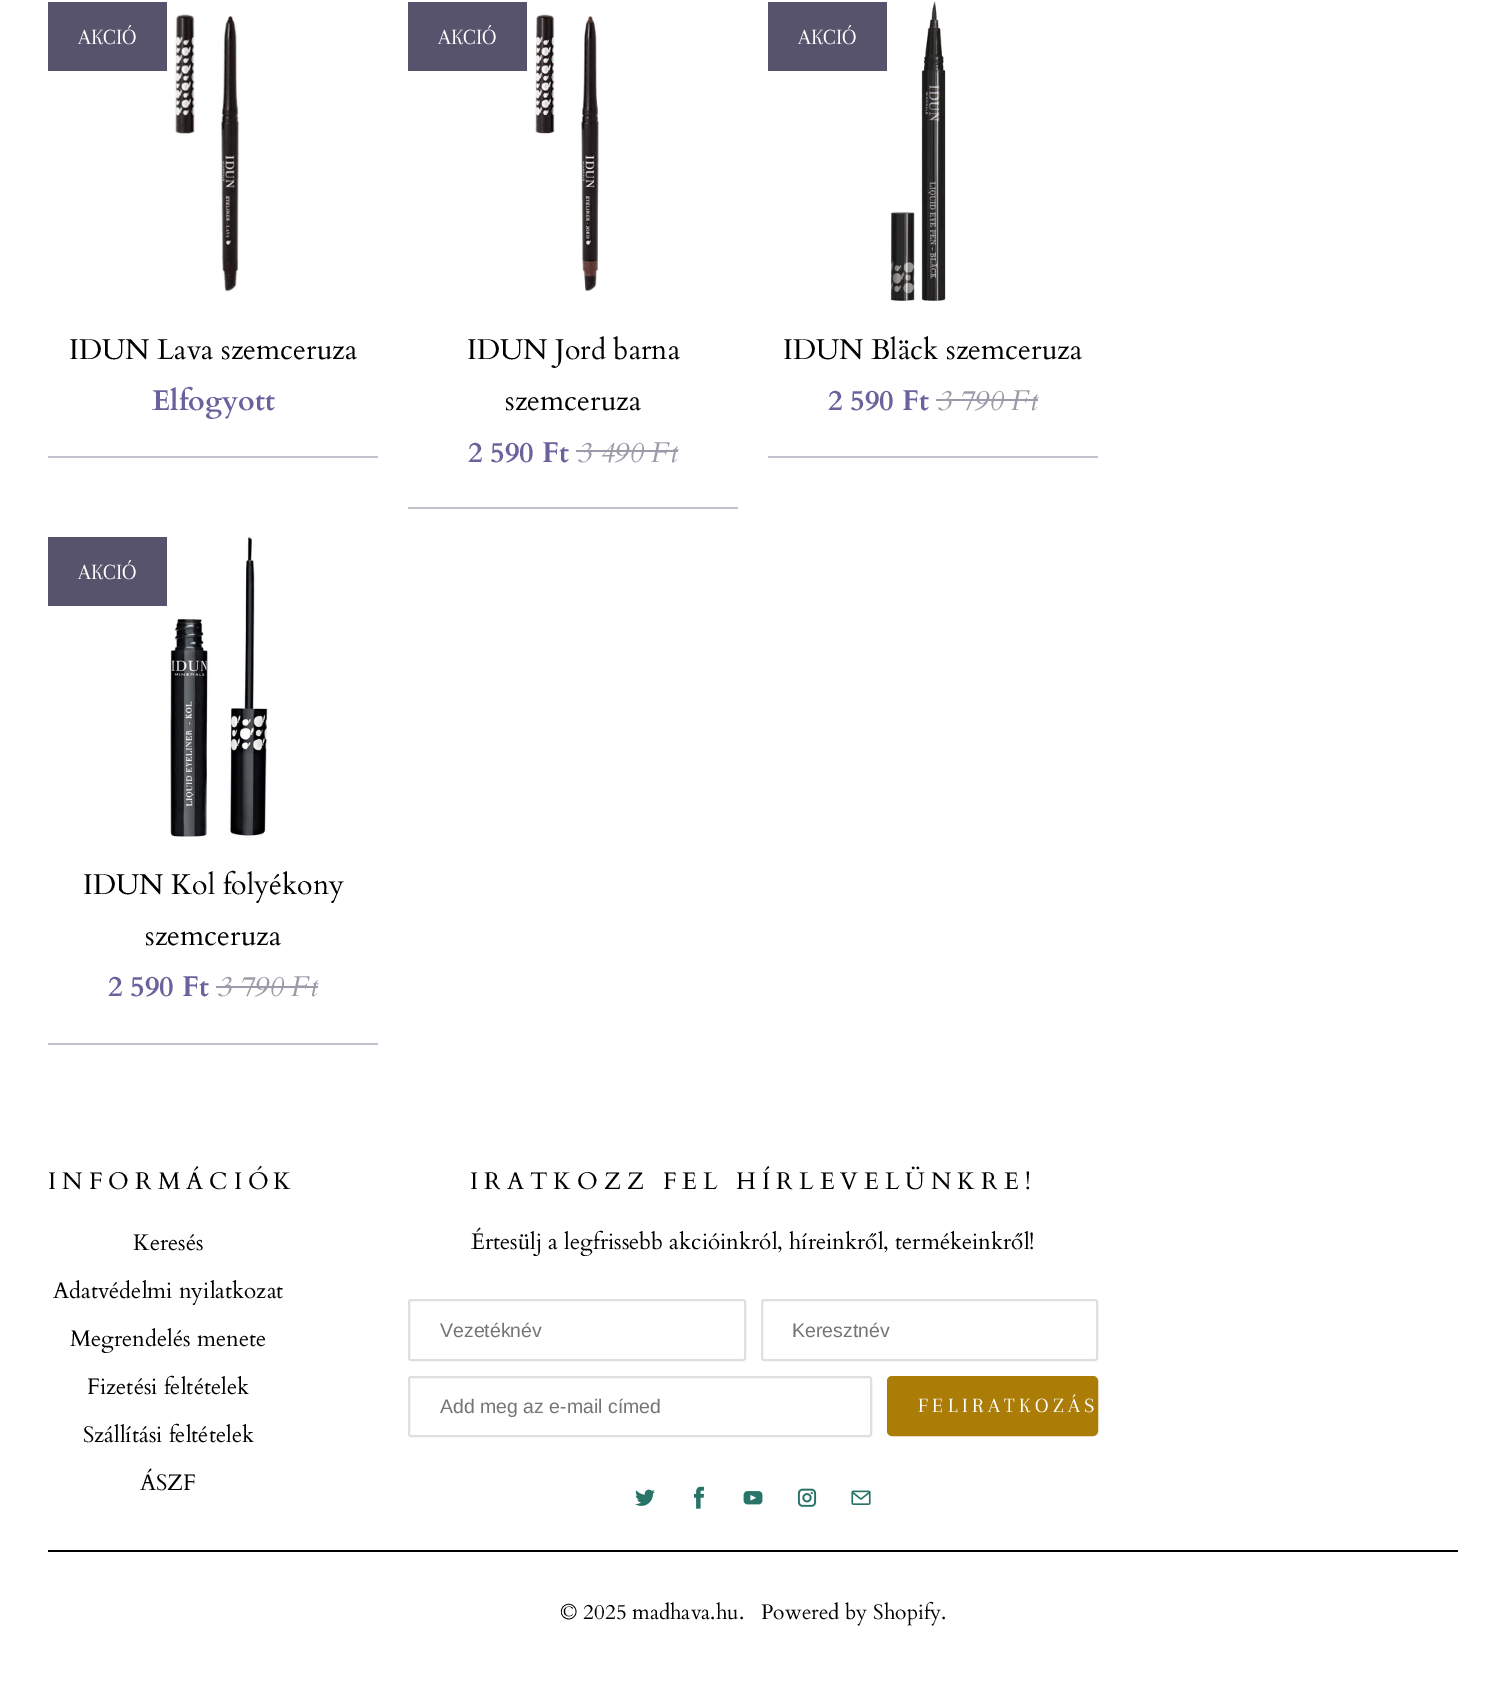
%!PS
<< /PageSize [1506 1706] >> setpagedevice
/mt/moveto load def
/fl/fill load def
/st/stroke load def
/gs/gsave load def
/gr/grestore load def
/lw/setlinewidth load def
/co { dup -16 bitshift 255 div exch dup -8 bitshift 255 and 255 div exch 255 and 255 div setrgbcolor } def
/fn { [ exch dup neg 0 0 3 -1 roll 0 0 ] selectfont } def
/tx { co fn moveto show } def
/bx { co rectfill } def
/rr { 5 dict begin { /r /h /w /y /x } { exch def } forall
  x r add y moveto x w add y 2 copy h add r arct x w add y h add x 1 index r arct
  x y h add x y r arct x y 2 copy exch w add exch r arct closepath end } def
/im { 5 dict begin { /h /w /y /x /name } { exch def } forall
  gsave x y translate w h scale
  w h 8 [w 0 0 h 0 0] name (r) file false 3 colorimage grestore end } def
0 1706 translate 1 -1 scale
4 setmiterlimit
0 0 1506 1706 16#FFFFFF bx
48 456 330 2 16#C2C1CC bx
48 2 119 69 16#57536D bx
(media/1.raw) 174 13 66 279 im
408 507 330 2 16#C2C1CC bx
408 2 119 69 16#57536D bx
(media/2.raw) 535 14 64 278 im
576 450 102 2 16#9D9BA9 bx
768 456 330 2 16#C2C1CC bx
768 2 119 69 16#57536D bx
(media/3.raw) 890 1 56 300 im
936 399 102 2 16#9D9BA9 bx
48 1043 330 2 16#C2C1CC bx
48 537 119 69 16#57536D bx
(media/4.raw) 170 536 98 301 im
216 986 102 2 16#9D9BA9 bx
16#DFDFDF co
2 lw
409 1300 336 60 2 rr st
762 1300 335 60 2 rr st
409 1377 462 59 2 rr st
16#AB7D07 co
888 1377 209 58 4 rr gs fl gr
st
(media/5.raw) 635 1489 20 17 im
(media/6.raw) 693 1486 12 23 im
(media/7.raw) 743 1491 20 14 im
(media/8.raw) 797 1488 20 19 im
(media/9.raw) 851 1490 20 15 im
48 1550 1410 2 16#000000 bx
(AKCIÓ) 78 44 /Arapey-Regular 22.5 16#FFFFFF tx
(IDUN Lava szemceruza) 69 359 /Cardo-Regular 28.5 16#000000 tx
(Elfogyott) 152 410 /Cardo-Bold 28.5 16#6A629C tx
(AKCIÓ) 438 44 /Arapey-Regular 22.5 16#FFFFFF tx
(IDUN Jord barna) 467 359 /Cardo-Regular 28.5 16#000000 tx
(szemceruza) 505 410 /Cardo-Regular 28.5 16#000000 tx
(2 590 Ft) 468 462 /Cardo-Bold 28.5 16#6A629C tx
(3 490 Ft) 577 462 /Cardo-Italic 28.5 16#9D9BA9 tx
(AKCIÓ) 798 44 /Arapey-Regular 22.5 16#FFFFFF tx
(IDUN Bläck szemceruza) 783 359 /Cardo-Regular 28.5 16#000000 tx
(2 590 Ft) 828 410 /Cardo-Bold 28.5 16#6A629C tx
(3 790 Ft) 937 410 /Cardo-Italic 28.5 16#9D9BA9 tx
(AKCIÓ) 78 579 /Arapey-Regular 22.5 16#FFFFFF tx
(IDUN Kol folyékony) 83 894 /Cardo-Regular 28.5 16#000000 tx
(szemceruza) 145 945 /Cardo-Regular 28.5 16#000000 tx
(2 590 Ft) 108 996 /Cardo-Bold 28.5 16#6A629C tx
(3 790 Ft) 217 996 /Cardo-Italic 28.5 16#9D9BA9 tx
/Cardo-Regular 24 fn
16#000000 co
48 1189 mt 6 0 (INFORMÁCIÓK) ashow
(Keresés) 133 1250 /Cardo-Regular 22.5 16#000000 tx
(Adatvédelmi nyilatkozat) 53 1298 /Cardo-Regular 22.5 16#000000 tx
(Megrendelés menete) 70 1346 /Cardo-Regular 22.5 16#000000 tx
(Fizetési feltételek) 87 1394 /Cardo-Regular 22.5 16#000000 tx
(Szállítási feltételek) 83 1442 /Cardo-Regular 22.5 16#000000 tx
(ÁSZF) 140 1490 /Cardo-Regular 22.5 16#000000 tx
/Cardo-Regular 24 fn
470 1189 mt 6 0 (IRATKOZZ FEL HÍRLEVELÜNKRE!) ashow
(Értesülj a legfrissebb akcióinkról, híreinkről, termékeinkről!) 471 1249 /Cardo-Regular 22.5 16#000000 tx
(Vezetéknév) 440 1337 /LiberationSans-Regular 19.5 16#757575 tx
(Keresztnév) 792 1337 /LiberationSans-Regular 19.5 16#757575 tx
(Add meg az e-mail címed) 440 1413 /LiberationSans-Regular 19.5 16#757575 tx
/Arapey-Regular 21 fn
16#FFFFFF co
918 1412 mt 4.5 0 (FELIRATKOZÁS) ashow
(© 2025 madhava.hu.) 560 1619 /Cardo-Regular 21 16#000000 tx
(Powered by Shopify.) 761 1619 /Cardo-Regular 21 16#000000 tx
showpage
